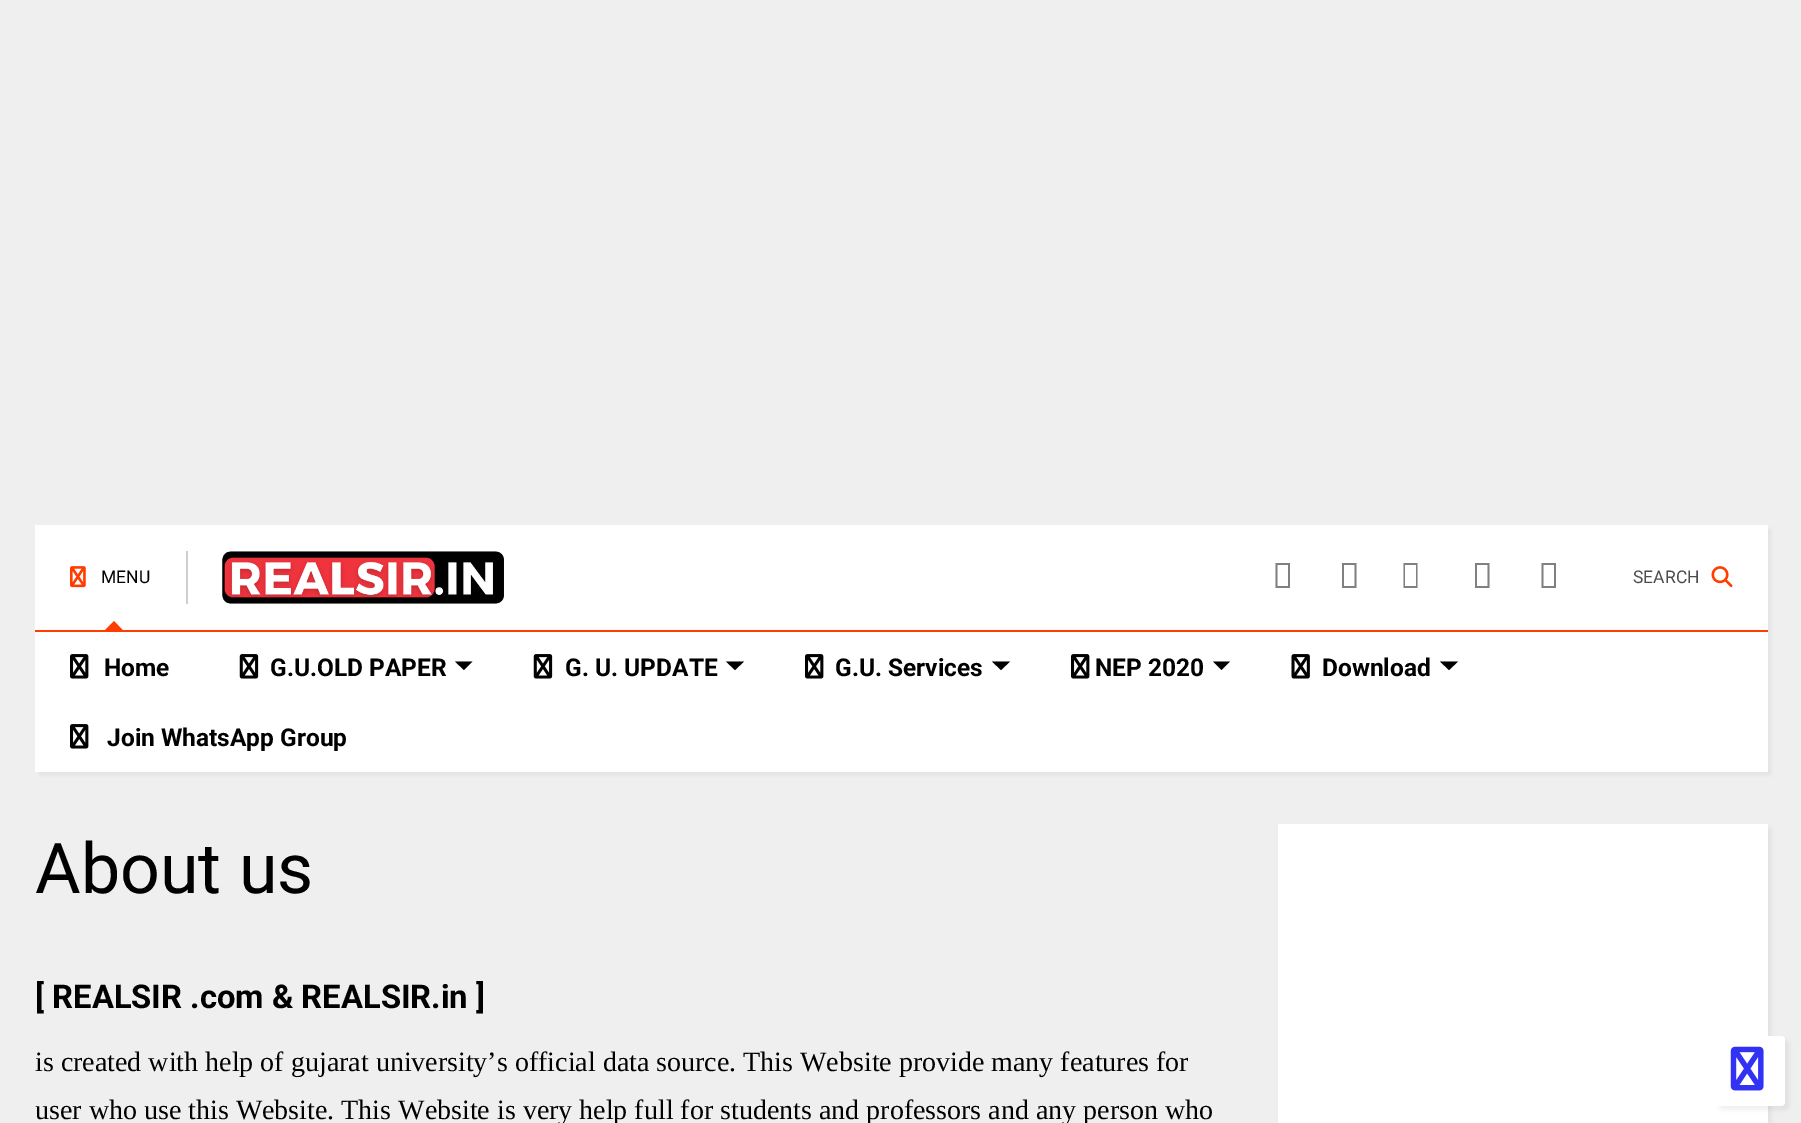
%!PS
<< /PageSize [1801 1123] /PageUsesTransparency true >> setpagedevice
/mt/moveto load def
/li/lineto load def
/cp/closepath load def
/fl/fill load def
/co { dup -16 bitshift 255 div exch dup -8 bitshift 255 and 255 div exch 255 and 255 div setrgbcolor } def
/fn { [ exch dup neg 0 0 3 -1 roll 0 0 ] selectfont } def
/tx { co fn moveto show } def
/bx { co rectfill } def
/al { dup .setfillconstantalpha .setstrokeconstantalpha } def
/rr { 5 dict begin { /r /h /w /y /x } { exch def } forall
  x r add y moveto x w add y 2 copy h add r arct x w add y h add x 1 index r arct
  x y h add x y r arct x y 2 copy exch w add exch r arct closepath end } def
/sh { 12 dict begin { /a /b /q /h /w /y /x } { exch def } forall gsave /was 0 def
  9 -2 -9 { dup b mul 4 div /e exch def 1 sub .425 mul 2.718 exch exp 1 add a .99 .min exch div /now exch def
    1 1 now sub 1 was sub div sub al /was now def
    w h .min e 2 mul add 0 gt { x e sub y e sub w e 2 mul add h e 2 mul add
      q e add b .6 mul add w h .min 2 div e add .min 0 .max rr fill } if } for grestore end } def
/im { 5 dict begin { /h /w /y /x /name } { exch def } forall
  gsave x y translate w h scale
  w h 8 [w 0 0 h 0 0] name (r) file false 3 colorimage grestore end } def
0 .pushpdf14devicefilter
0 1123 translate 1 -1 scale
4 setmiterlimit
0 0 1801 1123 16#EFEFEF bx
16#787878 co
39 529 1732 246 0 2.5 .12 sh
35 525 1733 247 16#FFFFFF bx
(media/1.raw) 70 566 16 22 im
16#FF3D00 co
122.5 630 mt 105 630 li 114 621 li cp fl
186 551 2 53 16#CFCFCF bx
(media/2.raw) 222 551 282 53 im
16#808080 co
1275.5 588 mt 1275.5 563 li 1290 563 li 1290 588 li cp 1277.5 586 mt 1288 586 li 1288 565 li 1277.5 565 li cp fl
1342 588 mt 1342 563 li 1356.5 563 li 1356.5 588 li cp 1344 586 mt 1354.5 586 li 1354.5 565 li 1344 565 li cp fl
1403.5 588 mt 1403.5 563 li 1417.5 563 li 1417.5 588 li cp 1405 586 mt 1416 586 li 1416 565 li 1405 565 li cp fl
1475 588 mt 1475 563 li 1489.5 563 li 1489.5 588 li cp 1477 586 mt 1487.5 586 li 1487.5 565 li 1477 565 li cp fl
1541.5 588 mt 1541.5 563 li 1556 563 li 1556 588 li cp 1543.5 586 mt 1554 586 li 1554 565 li 1543.5 565 li cp fl
(media/3.raw) 1711 566 22 22 im
35 630 1733 2 16#FF3D00 bx
(media/4.raw) 70 654 19 25 im
(media/5.raw) 239 654 20 25 im
16#000000 co
455 661.5 mt 472.5 661.5 li 464 670 li cp fl
(media/5.raw) 533 654 20 25 im
726 661.5 mt 744 661.5 li 735 670 li cp fl
(media/4.raw) 805 654 19 25 im
992 661.5 mt 1010 661.5 li 1001 670 li cp fl
(media/4.raw) 1071 654 19 25 im
1213 661.5 mt 1230 661.5 li 1221.5 670 li cp fl
(media/6.raw) 1291 654 19 25 im
1440 661.5 mt 1458 661.5 li 1449 670 li cp fl
(media/4.raw) 70 724 19 25 im
1281 828 490 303 0 2.5 .05 sh
1278 824 490 299 16#FFFFFF bx
16#000000 co
1719 1040 70 70 4 2.5 .05 sh
16#FFFFFF co
1715 1036 70 70 4 rr fl
(media/7.raw) 1730 1046 34 45 im
(MENU) 101 583 /Roboto-Regular 17.5 16#000000 tx
(SEARCH) 1633 583 /Roboto-Regular 17.5 16#4D4D4D tx
(Home) 104 676 /Roboto-Bold 24.5 16#000000 tx
(G.U.OLD PAPER) 270 676 /Roboto-Bold 24.5 16#000000 tx
(G. U. UPDATE) 565 676 /Roboto-Bold 24.5 16#000000 tx
(G.U. Services) 835 676 /Roboto-Bold 24.5 16#000000 tx
(NEP 2020) 1095 676 /Roboto-Bold 24.5 16#000000 tx
(Download) 1322 676 /Roboto-Bold 24.5 16#000000 tx
(Join WhatsApp Group) 107 746 /Roboto-Bold 24.5 16#000000 tx
(About us) 35 893 /Roboto-Regular 70 16#000000 tx
([ REALSIR .com & REALSIR.in ]) 35 1008 /Roboto-Bold 32.75 16#000000 tx
(is created with help of gujarat university’s official data source. This Website provide many features for) 35 1071 /LiberationSerif-Regular 28 16#000000 tx
(user who use this Website. This Website is very help full for students and professors and any person who) 35 1119 /LiberationSerif-Regular 28 16#000000 tx
.poppdf14devicefilter showpage
